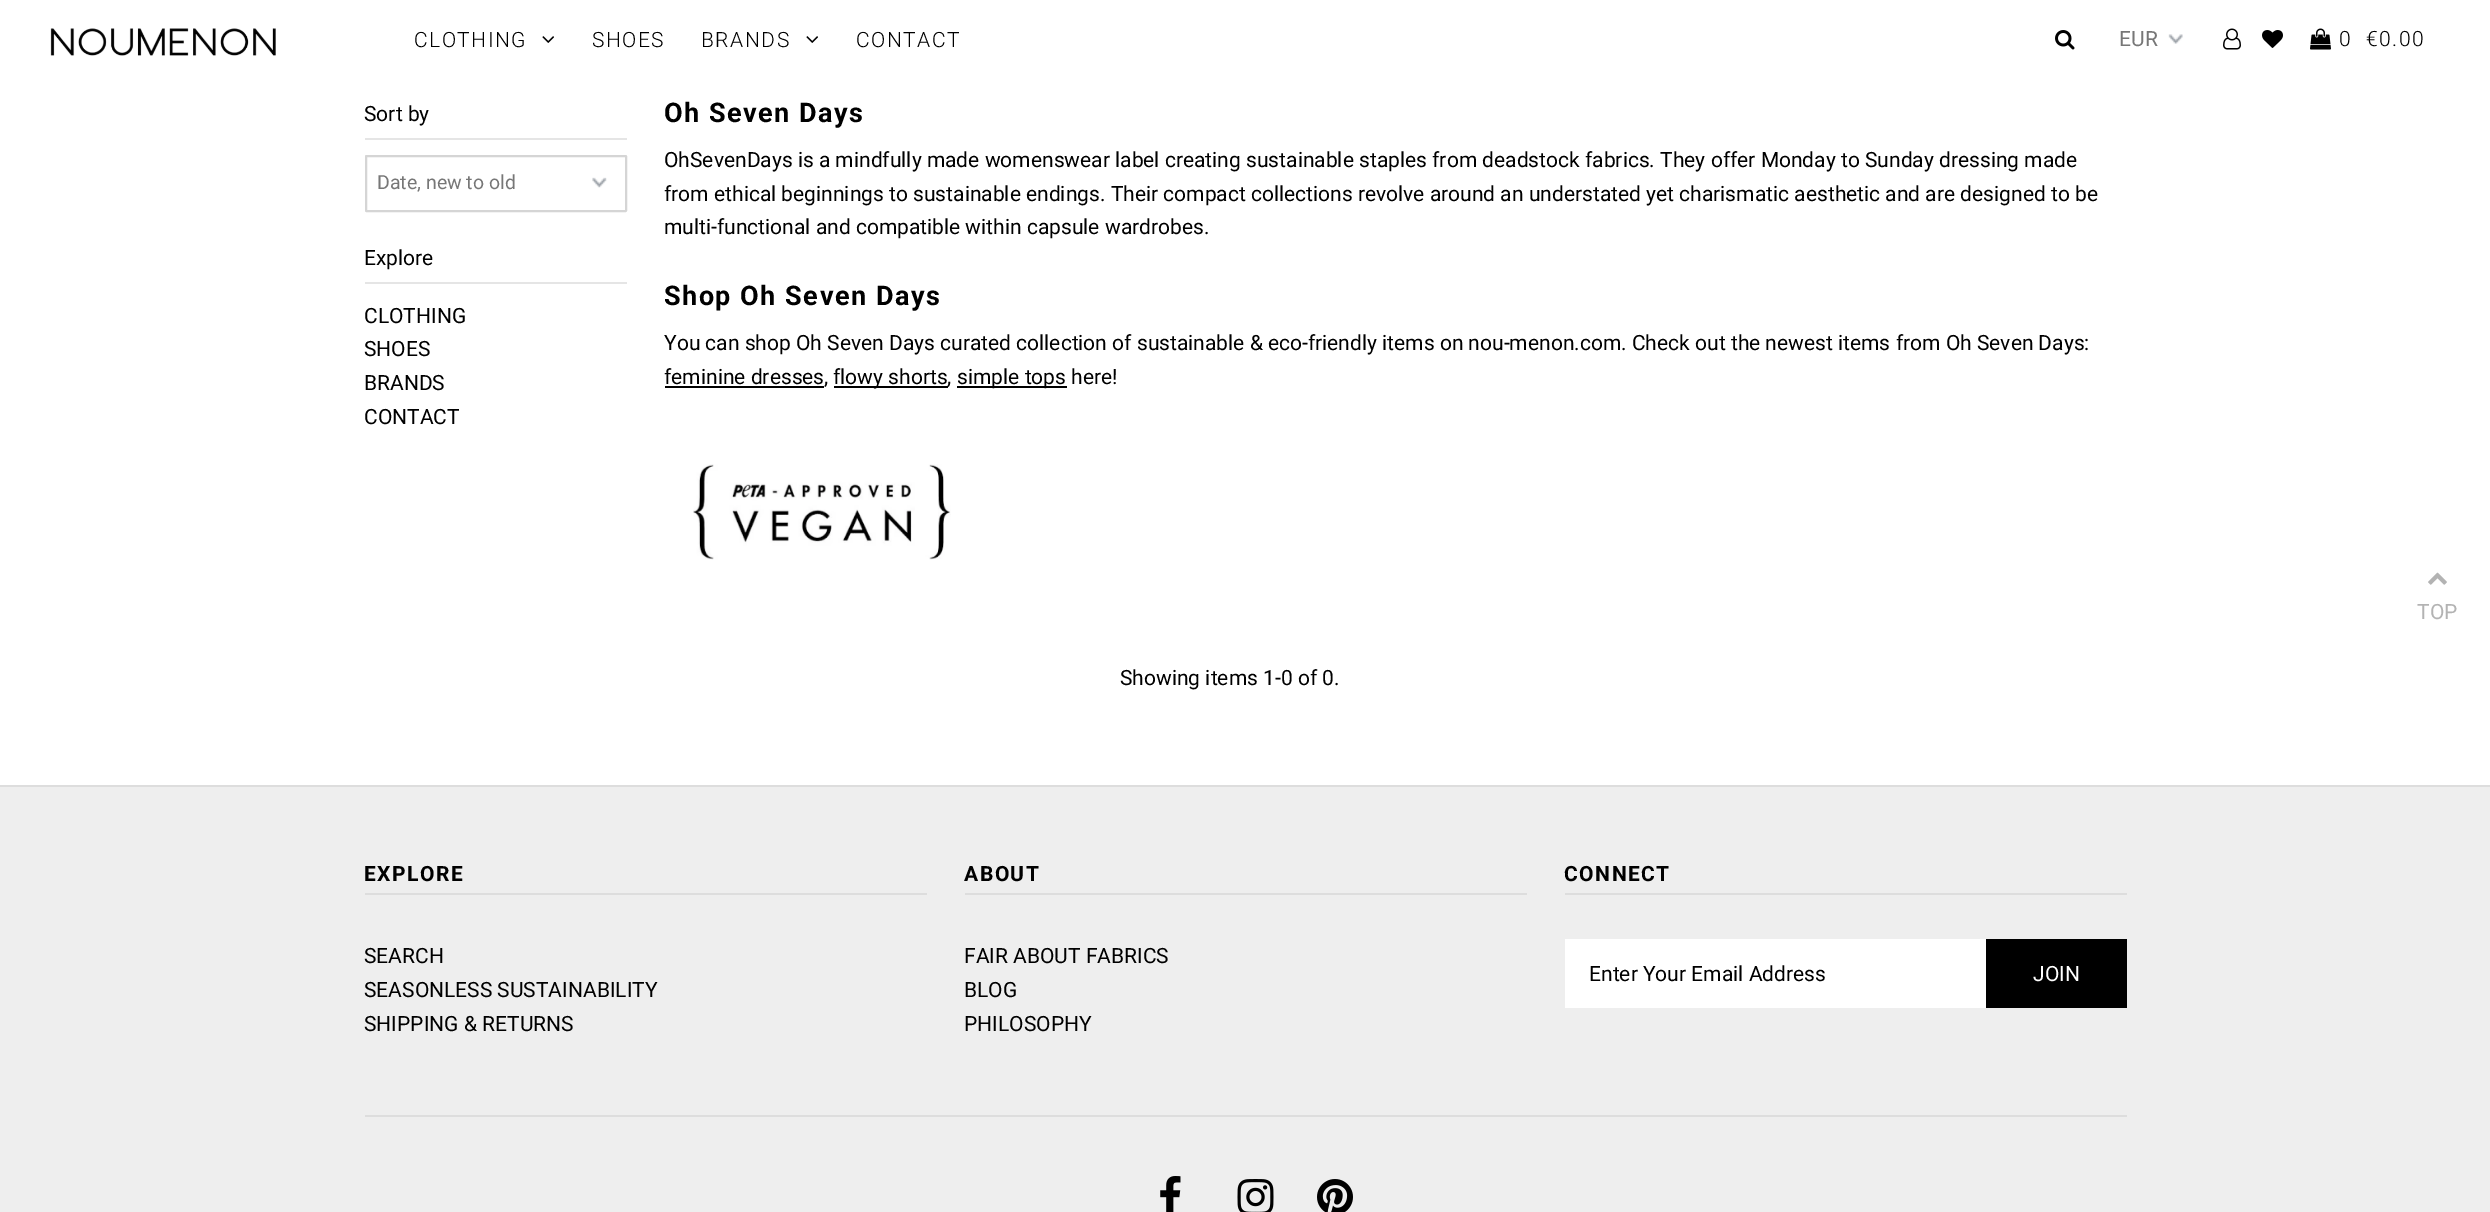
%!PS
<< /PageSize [2490 1212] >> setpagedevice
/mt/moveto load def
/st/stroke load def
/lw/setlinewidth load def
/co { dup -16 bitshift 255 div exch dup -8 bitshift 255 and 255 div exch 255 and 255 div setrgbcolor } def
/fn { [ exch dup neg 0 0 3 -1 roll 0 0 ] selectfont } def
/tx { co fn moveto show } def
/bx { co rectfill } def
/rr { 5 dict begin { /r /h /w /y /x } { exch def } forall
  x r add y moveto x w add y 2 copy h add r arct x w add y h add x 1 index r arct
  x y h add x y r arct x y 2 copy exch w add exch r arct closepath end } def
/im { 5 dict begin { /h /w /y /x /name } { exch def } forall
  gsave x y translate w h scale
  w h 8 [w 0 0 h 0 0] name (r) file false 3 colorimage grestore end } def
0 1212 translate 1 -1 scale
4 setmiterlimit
0 0 2490 1212 16#FFFFFF bx
(media/1.raw) 50 28 226 28 im
(media/2.raw) 542 36 12 7 im
(media/2.raw) 806 36 12 7 im
(media/3.raw) 2055 30 20 20 im
(media/4.raw) 2168 34 15 10 im
(media/5.raw) 2223 28 18 22 im
(media/6.raw) 2262 30 21 18 im
(media/7.raw) 2310 28 21 22 im
365 138 262 2 16#E5E5E5 bx
(media/8.raw) 592 177 15 11 im
16#D5D5D5 co
2 lw
366 156 260 55 .5 rr st
365 282 262 2 16#E5E5E5 bx
665 386 159 2 16#000000 bx
834 386 114 2 16#000000 bx
957 386 110 2 16#000000 bx
(media/9.raw) 693 464 258 96 im
0 787 2490 425 16#EEEEEE bx
0 785 2490 2 16#DDDDDD bx
365 893 562 2 16#DDDDDD bx
965 893 562 2 16#DDDDDD bx
1565 893 562 2 16#DDDDDD bx
1565 939 421 69 16#FFFFFF bx
1986 939 141 69 16#000000 bx
365 1115 1762 2 16#DDDDDD bx
(media/10.raw) 1160 1176 21 36 im
(media/11.raw) 1237 1179 37 33 im
(media/12.raw) 1317 1179 36 33 im
(media/13.raw) 2428 572 19 13 im
/Roboto-Light 21 fn
16#000000 co
414 47 mt 1.5 0 (CLOTHING) ashow
592 47 mt 1.5 0 (SHOES) ashow
701 47 mt 1.5 0 (BRANDS) ashow
856 47 mt 1.5 0 (CONTACT) ashow
(EUR) 2119 46 /Roboto-Regular 21 16#777777 tx
/Roboto-Light 21 fn
16#000000 co
2339 46 mt 1.5 0 (0) ashow
2366 46 mt 1.5 0 (€0.00) ashow
(Sort by) 364 121 /Roboto-Regular 21 16#000000 tx
(Date, new to old) 377 189 /Roboto-Regular 19.5 16#777777 tx
(Explore) 364 265 /Roboto-Regular 21 16#000000 tx
(CLOTHING) 364 323 /Roboto-Regular 21 16#000000 tx
(SHOES) 364 356 /Roboto-Regular 21 16#000000 tx
(BRANDS) 364 390 /Roboto-Regular 21 16#000000 tx
(CONTACT) 364 424 /Roboto-Regular 21 16#000000 tx
/Roboto-Bold 27 fn
664 122 mt 1.5 0 (Oh Seven Days) ashow
(OhSevenDays is a mindfully made womenswear label creating sustainable staples from deadstock fabrics. They offer Monday to Sunday dressing made) 664 167 /Roboto-Regular 21 16#000000 tx
(from ethical beginnings to sustainable endings. Their compact collections revolve around an understated yet charismatic aesthetic and are designed to be) 664 201 /Roboto-Regular 21 16#000000 tx
(multi-functional and compatible within capsule wardrobes.) 664 234 /Roboto-Regular 21 16#000000 tx
/Roboto-Bold 27 fn
664 305 mt 1.5 0 (Shop Oh Seven Days) ashow
(You can shop Oh Seven Days curated collection of sustainable & eco-friendly items on nou-menon.com. Check out the newest items from Oh Seven Days:) 664 350 /Roboto-Regular 21 16#000000 tx
(feminine dresses,) 664 384 /Roboto-Regular 21 16#000000 tx
(flowy shorts,) 833 384 /Roboto-Regular 21 16#000000 tx
(simple tops here!) 957 384 /Roboto-Regular 21 16#000000 tx
(Showing items 1-0 of 0.) 1120 685 /Roboto-Regular 21 16#000000 tx
/Roboto-Bold 21 fn
364 881 mt 1.5 0 (EXPLORE) ashow
(SEARCH) 364 963 /Roboto-Regular 21 16#000000 tx
(SEASONLESS SUSTAINABILITY) 364 997 /Roboto-Regular 21 16#000000 tx
(SHIPPING & RETURNS) 364 1031 /Roboto-Regular 21 16#000000 tx
/Roboto-Bold 21 fn
964 881 mt 1.5 0 (ABOUT) ashow
(FAIR ABOUT FABRICS) 964 963 /Roboto-Regular 21 16#000000 tx
(BLOG) 964 997 /Roboto-Regular 21 16#000000 tx
(PHILOSOPHY) 964 1031 /Roboto-Regular 21 16#000000 tx
/Roboto-Bold 21 fn
1564 881 mt 1.5 0 (CONNECT) ashow
(Enter Your Email Address) 1589 981 /Roboto-Regular 21 16#000000 tx
(JOIN) 2033 981 /Roboto-Regular 21 16#FFFFFF tx
(TOP) 2417 619 /Roboto-Regular 21 16#B3B3B3 tx
showpage
